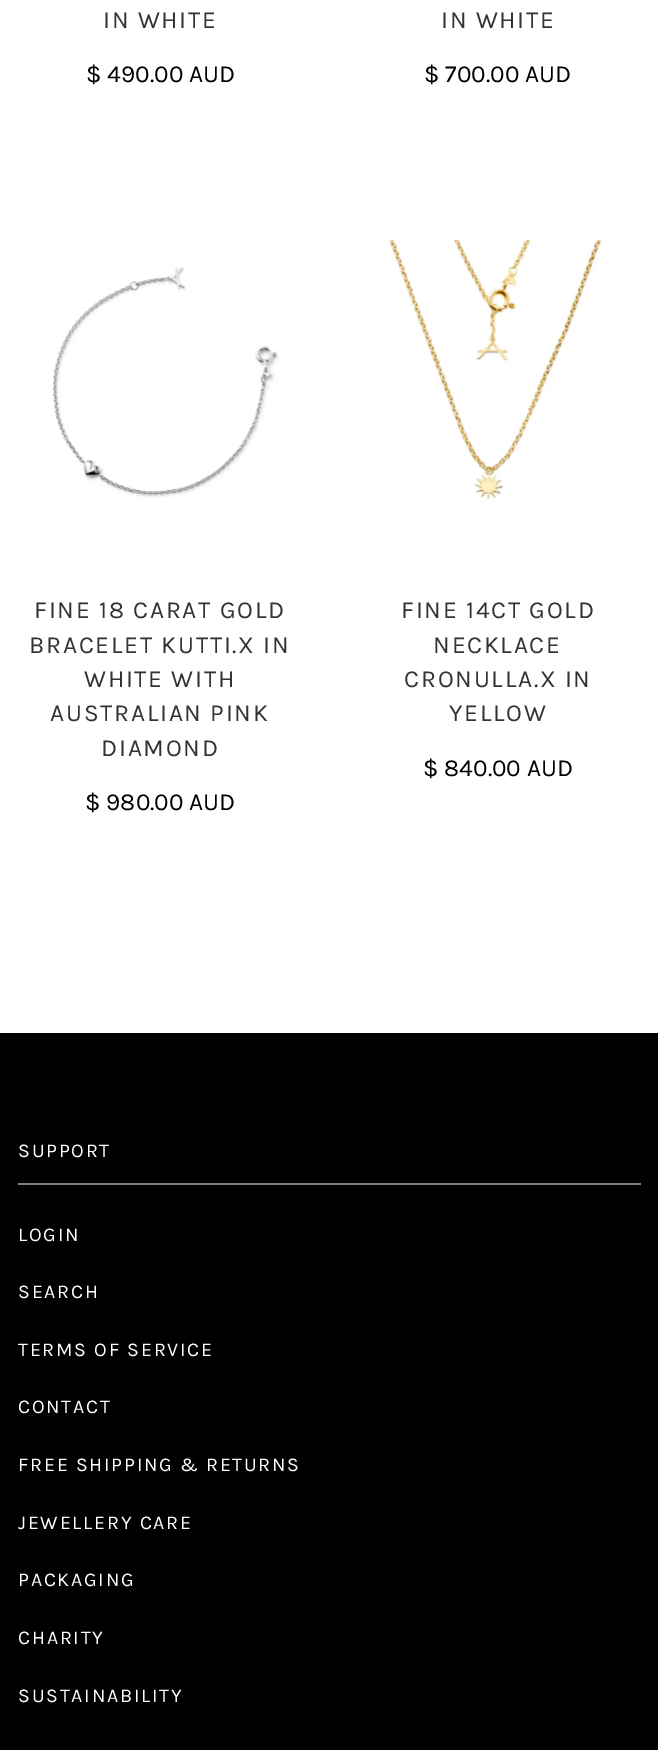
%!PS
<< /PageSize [658 1750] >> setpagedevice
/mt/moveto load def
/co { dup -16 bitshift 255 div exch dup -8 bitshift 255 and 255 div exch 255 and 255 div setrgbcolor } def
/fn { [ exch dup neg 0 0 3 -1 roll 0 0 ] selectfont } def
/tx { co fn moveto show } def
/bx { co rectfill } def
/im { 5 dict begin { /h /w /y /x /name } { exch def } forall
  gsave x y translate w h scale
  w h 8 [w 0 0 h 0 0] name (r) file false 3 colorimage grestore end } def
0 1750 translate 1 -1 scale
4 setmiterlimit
0 0 658 1750 16#FFFFFF bx
(media/1.raw) 52 267 227 231 im
(media/2.raw) 388 239 214 261 im
0 1033 658 717 16#000000 bx
18 1183 623 2 16#808080 bx
/Karla-Regular 24.5 fn
16#333333 co
103 28 mt 1.75 0 (IN WHITE) ashow
($ 490.00 AUD) 86 82 /Karla-Regular 24.5 16#000000 tx
16#333333 co
441 28 mt 1.75 0 (IN WHITE) ashow
($ 700.00 AUD) 424 82 /Karla-Regular 24.5 16#000000 tx
16#333333 co
34 618 mt 1.75 0 (FINE 18 CARAT GOLD) ashow
29 653 mt 1.75 0 (BRACELET KUTTI.X IN) ashow
84 687 mt 1.75 0 (WHITE WITH) ashow
50 721 mt 1.75 0 (AUSTRALIAN PINK) ashow
101 756 mt 1.75 0 (DIAMOND) ashow
($ 980.00 AUD) 85 810 /Karla-Regular 24.5 16#000000 tx
16#333333 co
401 618 mt 1.75 0 (FINE 14CT GOLD) ashow
433 653 mt 1.75 0 (NECKLACE) ashow
404 687 mt 1.75 0 (CRONULLA.X IN) ashow
449 721 mt 1.75 0 (YELLOW) ashow
($ 840.00 AUD) 423 776 /Karla-Regular 24.5 16#000000 tx
/Karla-Regular 19.6 fn
16#FFFFFF co
18 1157 mt 1.75 0 (SUPPORT) ashow
18 1241 mt 1.75 0 (LOGIN) ashow
18 1298 mt 1.75 0 (SEARCH) ashow
18 1356 mt 1.75 0 (TERMS OF SERVICE) ashow
18 1413 mt 1.75 0 (CONTACT) ashow
18 1471 mt 1.75 0 (FREE SHIPPING & RETURNS) ashow
18 1529 mt 1.75 0 (JEWELLERY CARE) ashow
18 1586 mt 1.75 0 (PACKAGING) ashow
18 1644 mt 1.75 0 (CHARITY) ashow
18 1702 mt 1.75 0 (SUSTAINABILITY) ashow
showpage
